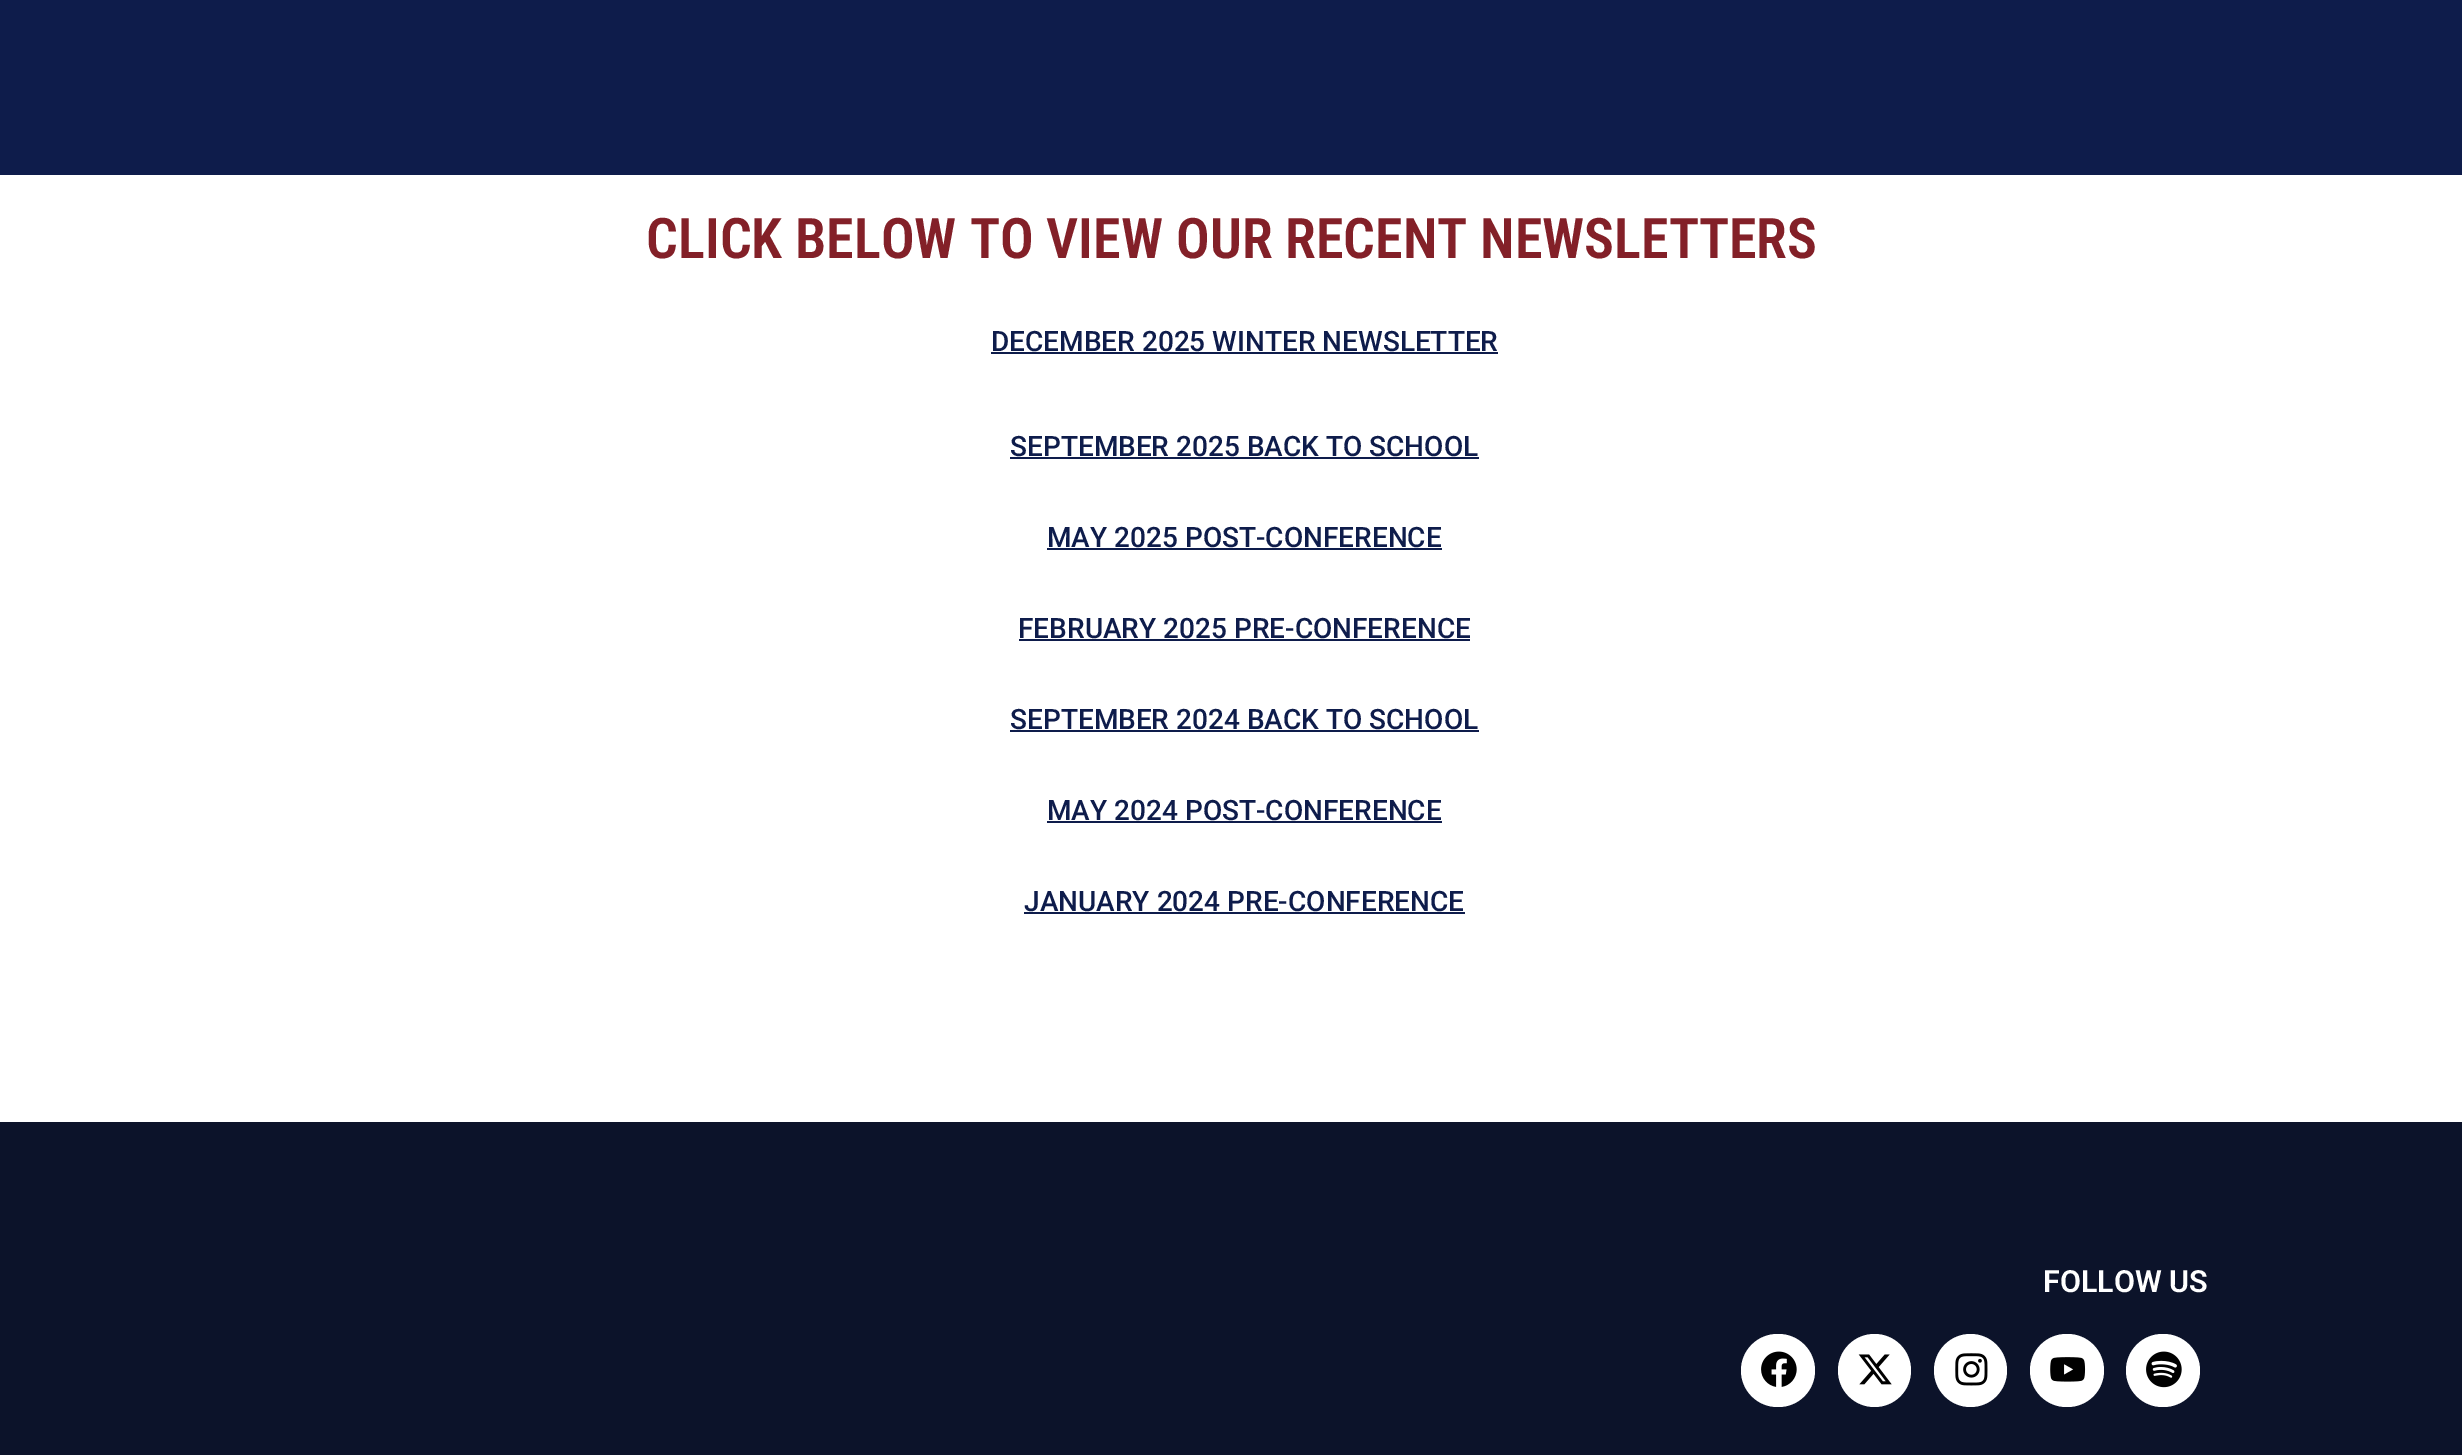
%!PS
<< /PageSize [2462 1455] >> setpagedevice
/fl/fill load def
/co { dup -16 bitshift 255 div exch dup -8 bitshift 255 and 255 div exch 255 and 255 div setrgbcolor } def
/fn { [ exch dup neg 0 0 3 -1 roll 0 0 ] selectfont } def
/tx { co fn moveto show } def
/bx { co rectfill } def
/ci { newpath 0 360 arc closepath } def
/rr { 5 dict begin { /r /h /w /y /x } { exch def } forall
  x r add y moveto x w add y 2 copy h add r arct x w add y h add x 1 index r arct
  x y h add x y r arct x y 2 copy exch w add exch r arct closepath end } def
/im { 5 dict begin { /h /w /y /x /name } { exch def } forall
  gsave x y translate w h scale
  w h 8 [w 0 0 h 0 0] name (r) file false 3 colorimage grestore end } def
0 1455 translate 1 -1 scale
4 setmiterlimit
0 0 2462 1455 16#FFFFFF bx
0 0 2462 175 16#0E1C4B bx
991 352 507 2 16#0E1C4B bx
1010 457 469 2 16#0E1C4B bx
1047 548 395 2 16#0E1C4B bx
1019 639 451 2 16#0E1C4B bx
1010 730 469 2 16#0E1C4B bx
1047 821 395 2 16#0E1C4B bx
1024 912 441 2 16#0E1C4B bx
0 1122 2462 333 16#0C132A bx
16#FFFFFF co
1741 1334 74 73 36.5 rr fl
(media/1.raw) 1761 1351 36 36 im
1874.5 1370.5 36.5 ci fl
(media/2.raw) 1858 1354 34 31 im
1970.5 1370.5 36.5 ci fl
(media/3.raw) 1955 1353 33 33 im
2030 1334 74 73 36.5 rr fl
(media/4.raw) 2050 1357 36 25 im
2126 1334 74 73 36.5 rr fl
(media/5.raw) 2146 1351 36 37 im
(CLICK BELOW TO VIEW OUR RECENT NEWSLETTERS) 646 258 /RobotoCondensed-SemiBold 56 16#832028 tx
(DECEMBER 2025 WINTER NEWSLETTER) 991 351 /Roboto-Medium 28 16#0E1C4B tx
(SEPTEMBER 2025 BACK TO SCHOOL) 1010 456 /Roboto-Medium 28 16#0E1C4B tx
(MAY 2025 POST-CONFERENCE) 1047 547 /Roboto-Medium 28 16#0E1C4B tx
(FEBRUARY 2025 PRE-CONFERENCE) 1018 638 /Roboto-Medium 28 16#0E1C4B tx
(SEPTEMBER 2024 BACK TO SCHOOL) 1010 729 /Roboto-Medium 28 16#0E1C4B tx
(MAY 2024 POST-CONFERENCE) 1047 820 /Roboto-Medium 28 16#0E1C4B tx
(JANUARY 2024 PRE-CONFERENCE) 1024 911 /Roboto-Medium 28 16#0E1C4B tx
(FOLLOW US) 2043 1292 /Roboto-SemiBold 30.5 16#FFFFFF tx
showpage
